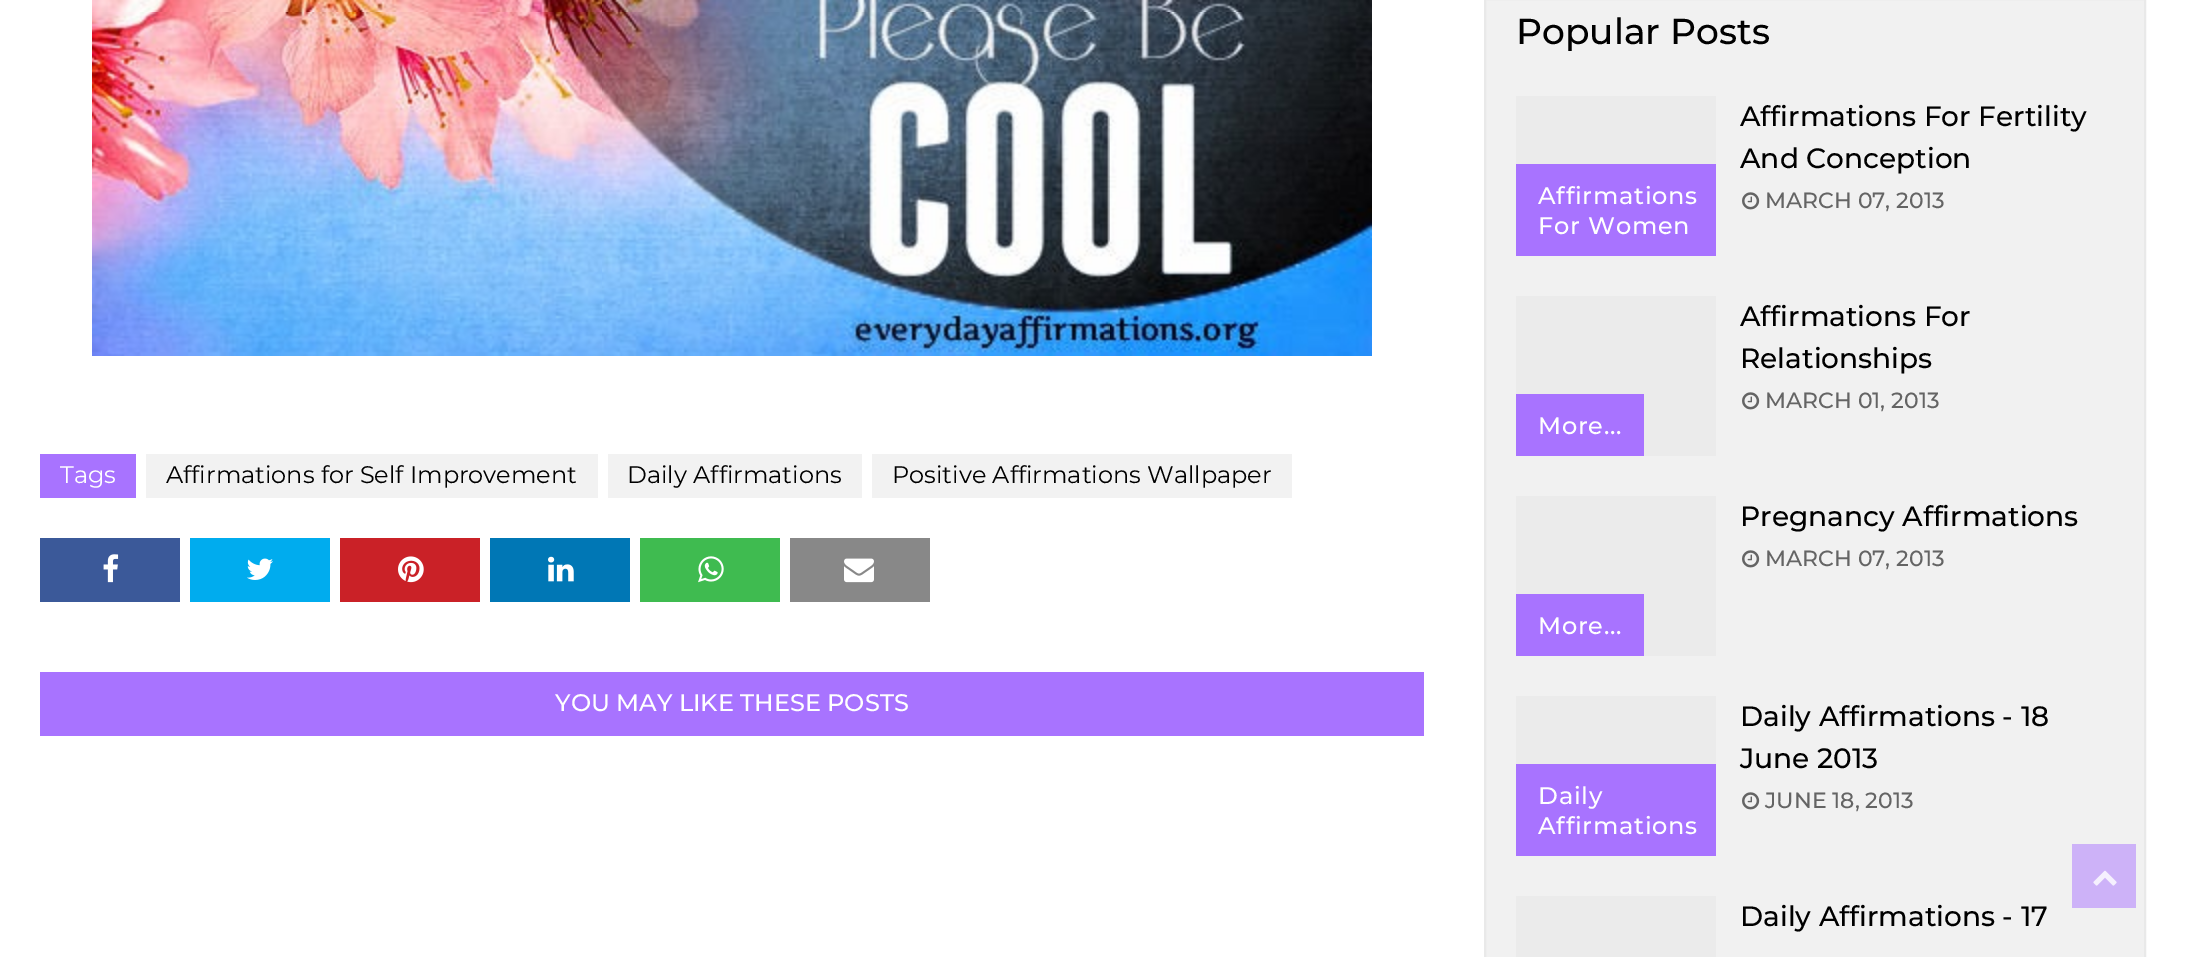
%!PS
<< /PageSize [2186 957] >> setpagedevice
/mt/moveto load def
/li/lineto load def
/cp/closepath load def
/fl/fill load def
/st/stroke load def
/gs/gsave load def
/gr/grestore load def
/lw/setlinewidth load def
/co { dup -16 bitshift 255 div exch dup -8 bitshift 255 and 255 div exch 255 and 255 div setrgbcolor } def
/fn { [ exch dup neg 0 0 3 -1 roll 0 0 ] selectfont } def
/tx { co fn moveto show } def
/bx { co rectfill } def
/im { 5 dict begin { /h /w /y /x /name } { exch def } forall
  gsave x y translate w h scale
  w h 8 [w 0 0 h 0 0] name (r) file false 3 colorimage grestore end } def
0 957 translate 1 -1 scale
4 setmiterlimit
0 0 2186 957 16#FFFFFF bx
(media/1.raw) 92 0 1280 356 im
40 454 96 44 16#A873FF bx
146 454 452 44 16#F2F2F2 bx
608 454 254 44 16#F2F2F2 bx
872 454 420 44 16#F2F2F2 bx
40 538 140 64 16#3B5999 bx
(media/2.raw) 103 554 16 29 im
190 538 140 64 16#00ACEE bx
(media/3.raw) 247 558 26 22 im
340 538 140 64 16#CA2127 bx
(media/4.raw) 398 556 26 27 im
490 538 140 64 16#0077B5 bx
(media/5.raw) 548 556 26 26 im
640 538 140 64 16#3FBB50 bx
(media/6.raw) 698 556 26 27 im
790 538 140 64 16#888888 bx
(media/7.raw) 844 558 30 25 im
40 672 1384 64 16#A873FF bx
16#F1F1F1 co
1485 -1 mt 2145 -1 li 2145 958 li 1485 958 li cp gs fl gr
16#E9E9E9 co
2 lw
st
1516 96 200 68 16#EBEBEB bx
1516 164 200 92 16#A873FF bx
(media/8.raw) 1742 192 18 18 im
(media/8.raw) 1742 392 18 18 im
1516 296 200 160 16#EBEBEB bx
1516 394 128 62 16#A873FF bx
(media/8.raw) 1742 550 18 18 im
1516 496 200 160 16#EBEBEB bx
1516 594 128 62 16#A873FF bx
1516 696 200 68 16#EBEBEB bx
1516 764 200 92 16#A873FF bx
(media/8.raw) 1742 792 18 18 im
1516 896 200 61 16#EBEBEB bx
2072 844 64 64 16#CDB2F8 bx
(media/9.raw) 2093 870 24 16 im
(Tags) 60 483 /Montserrat-Regular 24 16#FFFFFF tx
(Affirmations for Self Improvement) 166 483 /Montserrat-Regular 24 16#000000 tx
(Daily Affirmations) 627 483 /Montserrat-Regular 24 16#000000 tx
(Positive Affirmations Wallpaper) 892 483 /Montserrat-Regular 24 16#000000 tx
(YOU MAY LIKE THESE POSTS) 555 711 /Montserrat-Medium 24 16#FFFFFF tx
(Popular Posts) 1516 44 /Montserrat-Medium 36 16#000000 tx
/Montserrat-Medium 24 fn
16#FFFFFF co
1538 204 mt .75 0 (Affirmations) ashow
1538 234 mt .75 0 (For Women) ashow
(Affirmations For Fertility) 1740 126 /Montserrat-Medium 28 16#000000 tx
(And Conception) 1740 168 /Montserrat-Medium 28 16#000000 tx
(MARCH 07, 2013) 1765 208 /Montserrat-Medium 22 16#646464 tx
(Affirmations For) 1740 326 /Montserrat-Medium 28 16#000000 tx
(Relationships) 1740 368 /Montserrat-Medium 28 16#000000 tx
(MARCH 01, 2013) 1765 408 /Montserrat-Medium 22 16#646464 tx
/Montserrat-Medium 24 fn
16#FFFFFF co
1538 434 mt .75 0 (More...) ashow
(Pregnancy Affirmations) 1740 526 /Montserrat-Medium 28 16#000000 tx
(MARCH 07, 2013) 1765 566 /Montserrat-Medium 22 16#646464 tx
/Montserrat-Medium 24 fn
16#FFFFFF co
1538 634 mt .75 0 (More...) ashow
1538 804 mt .75 0 (Daily) ashow
1538 834 mt .75 0 (Affirmations) ashow
(Daily Affirmations - 18) 1740 726 /Montserrat-Medium 28 16#000000 tx
(June 2013) 1740 768 /Montserrat-Medium 28 16#000000 tx
(JUNE 18, 2013) 1765 808 /Montserrat-Medium 22 16#646464 tx
(Daily Affirmations - 17) 1740 926 /Montserrat-Medium 28 16#000000 tx
showpage
